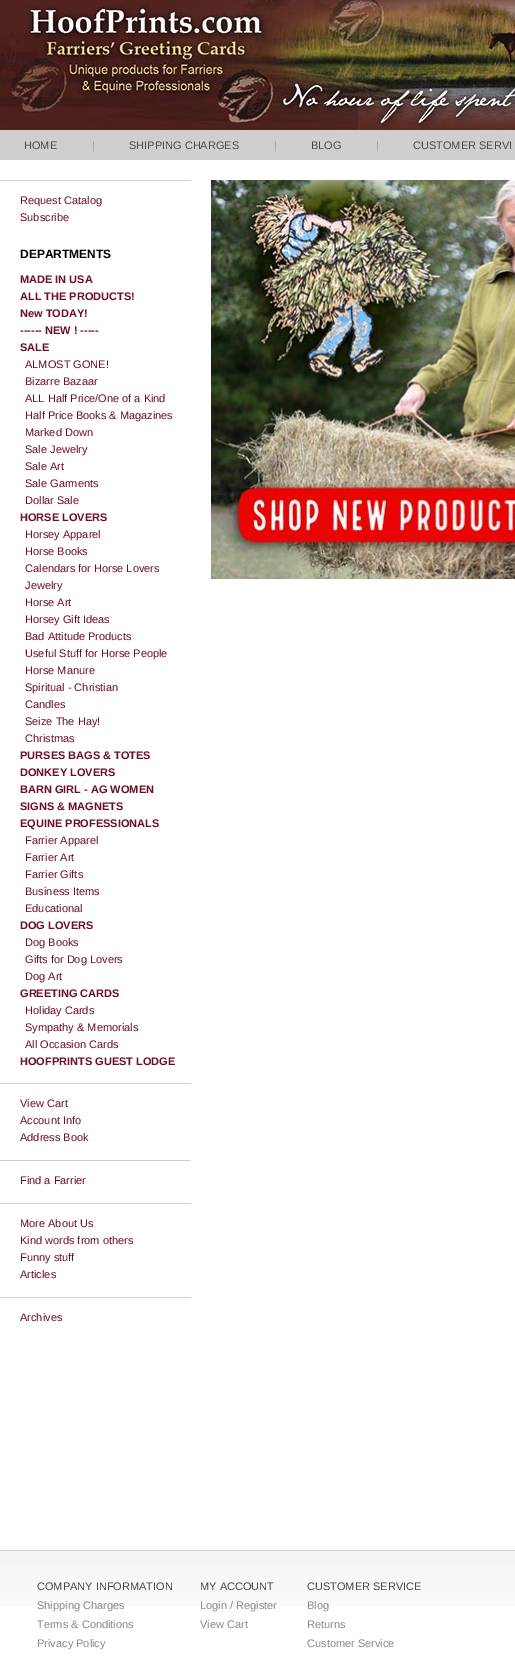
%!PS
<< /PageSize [515 1656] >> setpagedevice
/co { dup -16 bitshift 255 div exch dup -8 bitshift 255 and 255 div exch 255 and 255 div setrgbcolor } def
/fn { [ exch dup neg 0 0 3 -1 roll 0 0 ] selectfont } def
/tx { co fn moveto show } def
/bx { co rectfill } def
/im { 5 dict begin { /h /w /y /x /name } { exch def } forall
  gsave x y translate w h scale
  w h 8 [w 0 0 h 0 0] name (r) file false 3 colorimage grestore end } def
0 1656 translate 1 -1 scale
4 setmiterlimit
0 0 515 1656 16#CFCFCF bx
(media/1.raw) 0 0 515 130 im
0 160 515 1390 16#FFFFFF bx
0 180 191 1 16#CFCFCF bx
0 1083 191 1 16#CFCFCF bx
0 1160 191 1 16#CFCFCF bx
0 1203 191 1 16#CFCFCF bx
0 1297 191 1 16#CFCFCF bx
(media/2.raw) 211 180 304 399 im
0 1607 515 49 16#FFFFFF bx
(media/3.raw) 0 1550 515 57 im
(HOME) 24 149 /LiberationSans-Regular 11 16#484848 tx
(|) 92 149 /LiberationSans-Regular 11 16#9F9F9F tx
(SHIPPING CHARGES) 129 149 /LiberationSans-Regular 11 16#484848 tx
(|) 274 149 /LiberationSans-Regular 11 16#9F9F9F tx
(BLOG) 311 149 /LiberationSans-Regular 11 16#484848 tx
(|) 376 149 /LiberationSans-Regular 11 16#9F9F9F tx
(CUSTOMER SERVI) 413 149 /LiberationSans-Regular 11 16#484848 tx
(Request Catalog) 20 204 /LiberationSans-Regular 11 16#6C0E24 tx
(Subscribe) 20 221 /LiberationSans-Regular 11 16#6C0E24 tx
(DEPARTMENTS) 20 258 /LiberationSans-Bold 12 16#000000 tx
(MADE IN USA) 20 283 /LiberationSans-Bold 11 16#6C0E24 tx
(ALL THE PRODUCTS!) 20 300 /LiberationSans-Bold 11 16#6C0E24 tx
(New TODAY!) 20 317 /LiberationSans-Bold 11 16#6C0E24 tx
(------ NEW ! -----) 20 334 /LiberationSans-Bold 11 16#6C0E24 tx
(SALE) 20 351 /LiberationSans-Bold 11 16#6C0E24 tx
(ALMOST GONE!) 25 368 /LiberationSans-Regular 11 16#6C0E24 tx
(Bizarre Bazaar) 25 385 /LiberationSans-Regular 11 16#6C0E24 tx
(ALL Half Price/One of a Kind) 25 402 /LiberationSans-Regular 11 16#6C0E24 tx
(Half Price Books & Magazines) 25 419 /LiberationSans-Regular 11 16#6C0E24 tx
(Marked Down) 25 436 /LiberationSans-Regular 11 16#6C0E24 tx
(Sale Jewelry) 25 453 /LiberationSans-Regular 11 16#6C0E24 tx
(Sale Art) 25 470 /LiberationSans-Regular 11 16#6C0E24 tx
(Sale Garments) 25 487 /LiberationSans-Regular 11 16#6C0E24 tx
(Dollar Sale) 25 504 /LiberationSans-Regular 11 16#6C0E24 tx
(HORSE LOVERS) 20 521 /LiberationSans-Bold 11 16#6C0E24 tx
(Horsey Apparel) 25 538 /LiberationSans-Regular 11 16#6C0E24 tx
(Horse Books) 25 555 /LiberationSans-Regular 11 16#6C0E24 tx
(Calendars for Horse Lovers) 25 572 /LiberationSans-Regular 11 16#6C0E24 tx
(Jewelry) 25 589 /LiberationSans-Regular 11 16#6C0E24 tx
(Horse Art) 25 606 /LiberationSans-Regular 11 16#6C0E24 tx
(Horsey Gift Ideas) 25 623 /LiberationSans-Regular 11 16#6C0E24 tx
(Bad Attitude Products) 25 640 /LiberationSans-Regular 11 16#6C0E24 tx
(Useful Stuff for Horse People) 25 657 /LiberationSans-Regular 11 16#6C0E24 tx
(Horse Manure) 25 674 /LiberationSans-Regular 11 16#6C0E24 tx
(Spiritual - Christian) 25 691 /LiberationSans-Regular 11 16#6C0E24 tx
(Candles) 25 708 /LiberationSans-Regular 11 16#6C0E24 tx
(Seize The Hay!) 25 725 /LiberationSans-Regular 11 16#6C0E24 tx
(Christmas) 25 742 /LiberationSans-Regular 11 16#6C0E24 tx
(PURSES BAGS & TOTES) 20 759 /LiberationSans-Bold 11 16#6C0E24 tx
(DONKEY LOVERS) 20 776 /LiberationSans-Bold 11 16#6C0E24 tx
(BARN GIRL - AG WOMEN) 20 793 /LiberationSans-Bold 11 16#6C0E24 tx
(SIGNS & MAGNETS) 20 810 /LiberationSans-Bold 11 16#6C0E24 tx
(EQUINE PROFESSIONALS) 20 827 /LiberationSans-Bold 11 16#6C0E24 tx
(Farrier Apparel) 25 844 /LiberationSans-Regular 11 16#6C0E24 tx
(Farrier Art) 25 861 /LiberationSans-Regular 11 16#6C0E24 tx
(Farrier Gifts) 25 878 /LiberationSans-Regular 11 16#6C0E24 tx
(Business Items) 25 895 /LiberationSans-Regular 11 16#6C0E24 tx
(Educational) 25 912 /LiberationSans-Regular 11 16#6C0E24 tx
(DOG LOVERS) 20 929 /LiberationSans-Bold 11 16#6C0E24 tx
(Dog Books) 25 946 /LiberationSans-Regular 11 16#6C0E24 tx
(Gifts for Dog Lovers) 25 963 /LiberationSans-Regular 11 16#6C0E24 tx
(Dog Art) 25 980 /LiberationSans-Regular 11 16#6C0E24 tx
(GREETING CARDS) 20 997 /LiberationSans-Bold 11 16#6C0E24 tx
(Holiday Cards) 25 1014 /LiberationSans-Regular 11 16#6C0E24 tx
(Sympathy & Memorials) 25 1031 /LiberationSans-Regular 11 16#6C0E24 tx
(All Occasion Cards) 25 1048 /LiberationSans-Regular 11 16#6C0E24 tx
(HOOFPRINTS GUEST LODGE) 20 1065 /LiberationSans-Bold 11 16#6C0E24 tx
(View Cart) 20 1107 /LiberationSans-Regular 11 16#6C0E24 tx
(Account Info) 20 1124 /LiberationSans-Regular 11 16#6C0E24 tx
(Address Book) 20 1141 /LiberationSans-Regular 11 16#6C0E24 tx
(Find a Farrier) 20 1184 /LiberationSans-Regular 11 16#6C0E24 tx
(More About Us) 20 1227 /LiberationSans-Regular 11 16#6C0E24 tx
(Kind words from others) 20 1244 /LiberationSans-Regular 11 16#6C0E24 tx
(Funny stuff) 20 1261 /LiberationSans-Regular 11 16#6C0E24 tx
(Articles) 20 1278 /LiberationSans-Regular 11 16#6C0E24 tx
(Archives) 20 1321 /LiberationSans-Regular 11 16#6C0E24 tx
(COMPANY INFORMATION) 37 1590 /LiberationSans-Regular 11 16#484848 tx
(Shipping Charges) 37 1609 /LiberationSans-Regular 11 16#888888 tx
(Terms & Conditions) 37 1628 /LiberationSans-Regular 11 16#888888 tx
(Privacy Policy) 37 1647 /LiberationSans-Regular 11 16#888888 tx
(MY ACCOUNT) 200 1590 /LiberationSans-Regular 11 16#484848 tx
(Login / Register) 200 1609 /LiberationSans-Regular 11 16#888888 tx
(View Cart) 200 1628 /LiberationSans-Regular 11 16#888888 tx
(CUSTOMER SERVICE) 307 1590 /LiberationSans-Regular 11 16#484848 tx
(Blog) 307 1609 /LiberationSans-Regular 11 16#888888 tx
(Returns) 307 1628 /LiberationSans-Regular 11 16#888888 tx
(Customer Service) 307 1647 /LiberationSans-Regular 11 16#888888 tx
showpage
